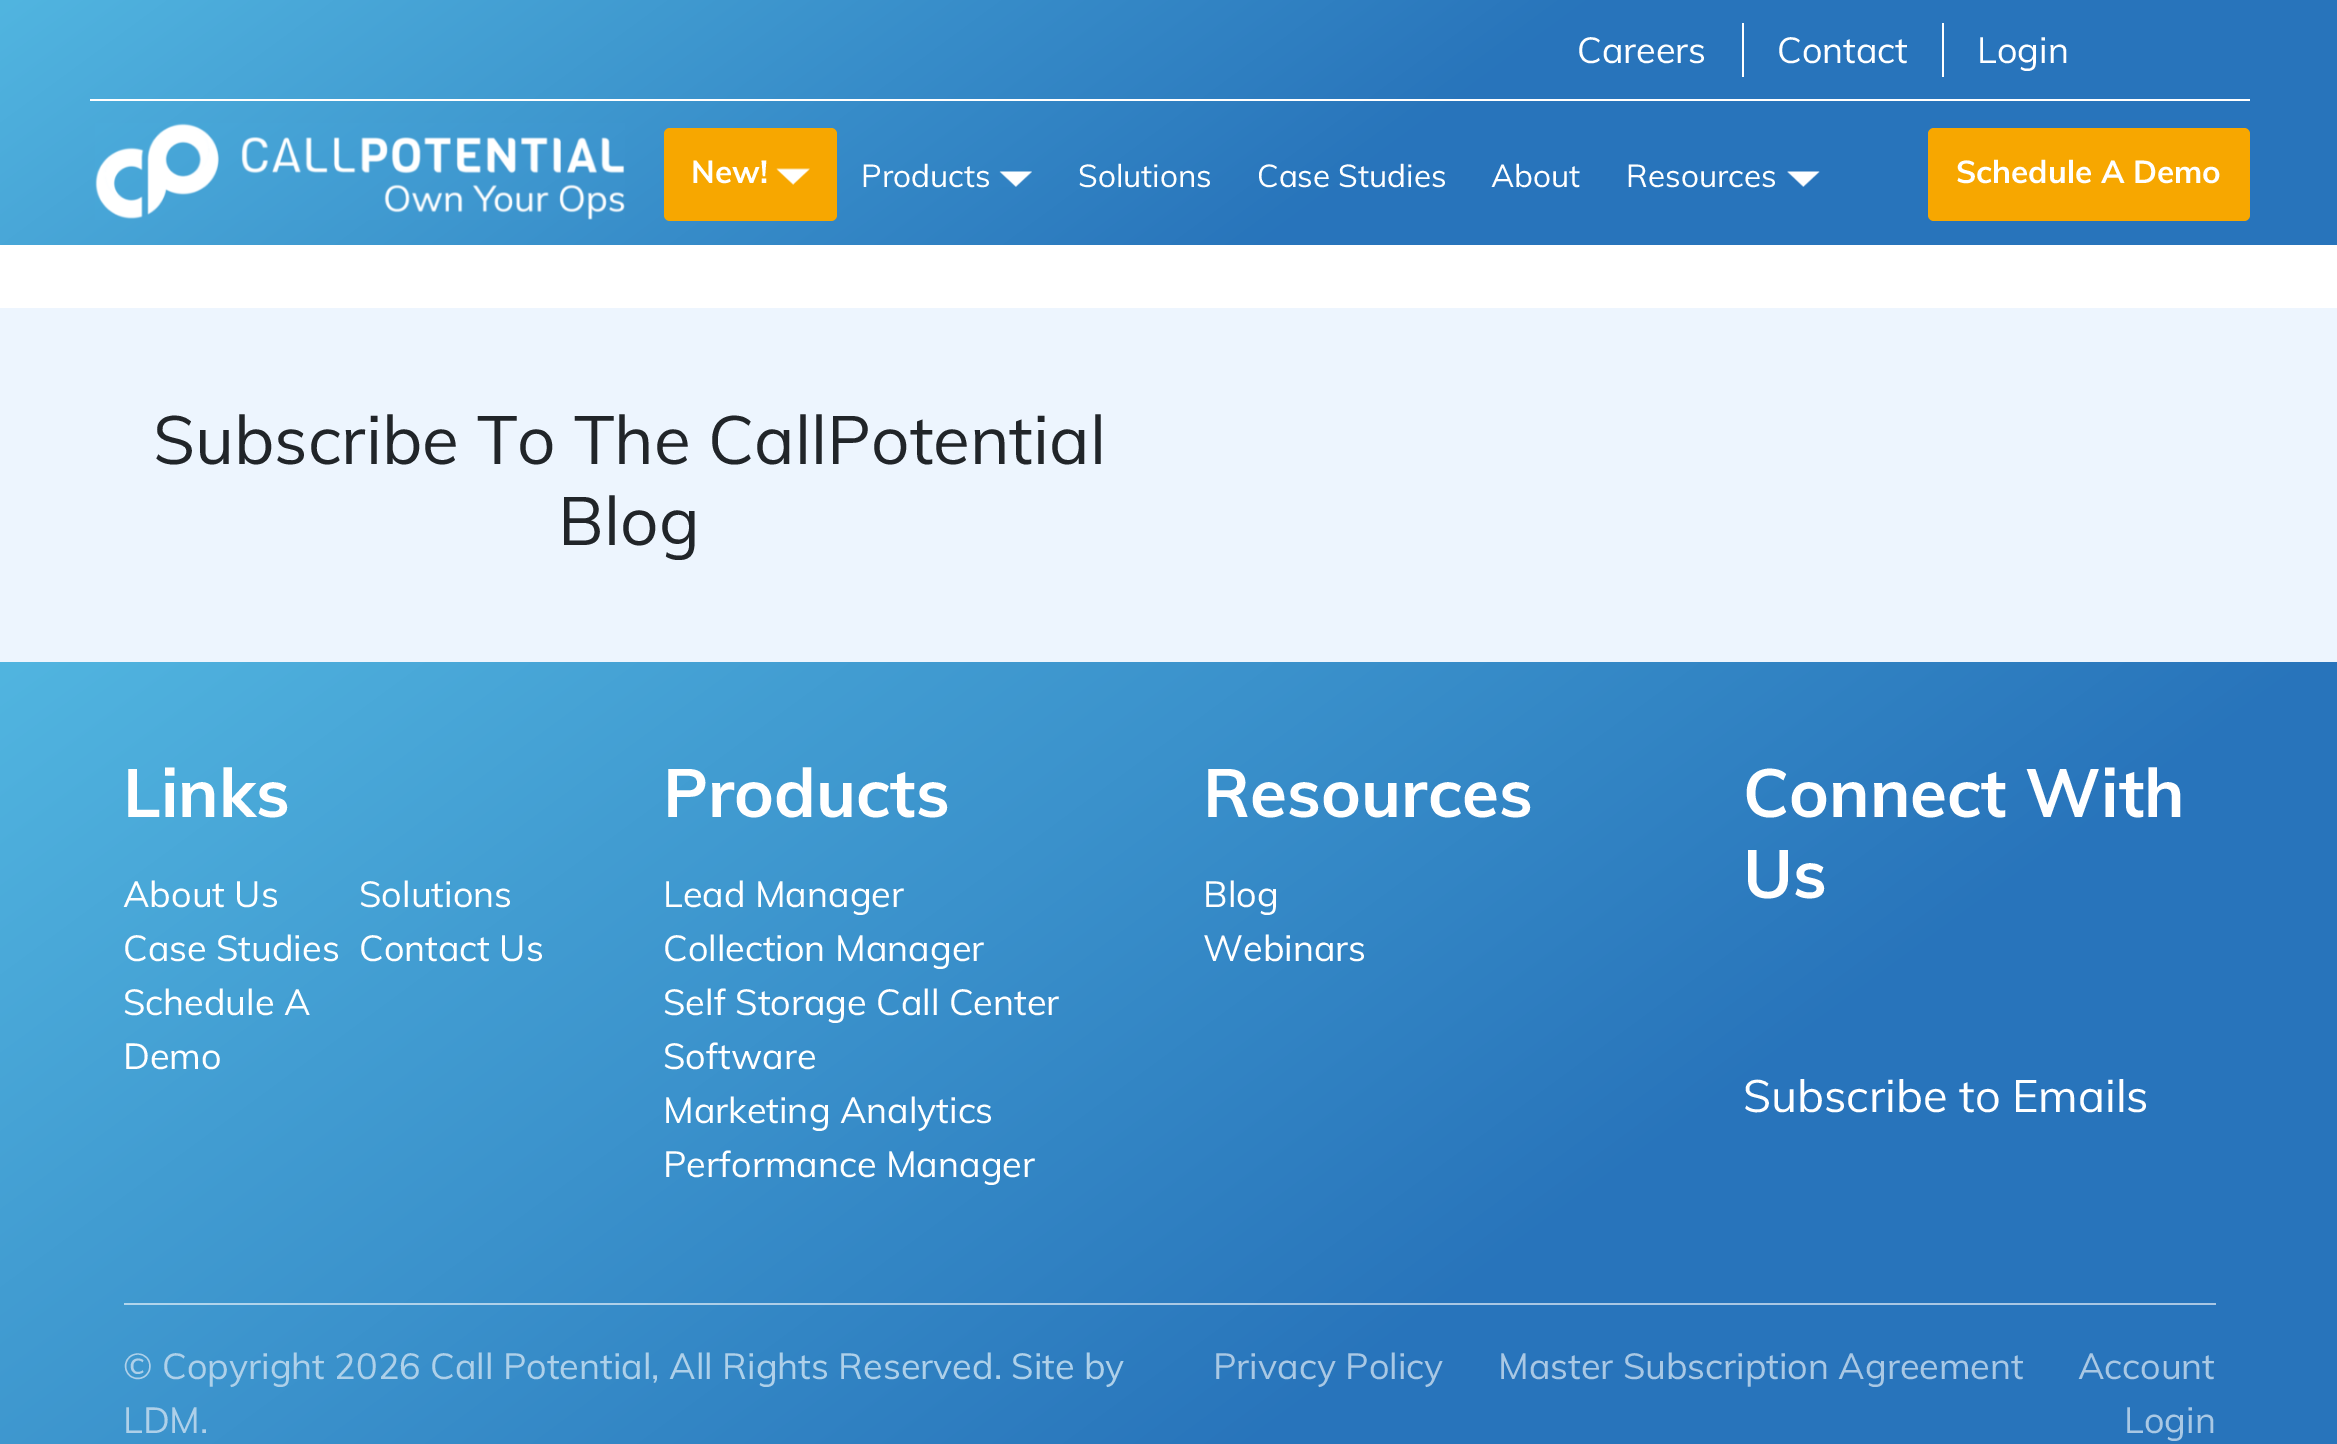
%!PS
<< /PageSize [2337 1444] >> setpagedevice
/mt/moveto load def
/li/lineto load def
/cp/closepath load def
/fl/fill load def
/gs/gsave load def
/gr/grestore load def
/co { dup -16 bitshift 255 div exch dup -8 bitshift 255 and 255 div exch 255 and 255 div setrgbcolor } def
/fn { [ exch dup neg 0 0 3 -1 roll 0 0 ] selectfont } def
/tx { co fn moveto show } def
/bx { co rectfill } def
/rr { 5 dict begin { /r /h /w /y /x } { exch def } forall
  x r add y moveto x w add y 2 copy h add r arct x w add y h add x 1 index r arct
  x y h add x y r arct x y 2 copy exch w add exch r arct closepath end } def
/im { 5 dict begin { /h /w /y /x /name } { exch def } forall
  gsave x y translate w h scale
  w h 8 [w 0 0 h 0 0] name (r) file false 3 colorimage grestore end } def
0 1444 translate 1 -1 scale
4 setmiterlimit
0 0 2337 1444 16#FFFFFF bx
gs 0 0 mt 2337 0 li 2337 245 li 0 245 li cp clip newpath
<< /ShadingType 2 /ColorSpace /DeviceRGB /Coords [1637 760 700 -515] /Extend [true true] /Function << /FunctionType 3 /Domain [0 1] /Functions [<< /FunctionType 2 /Domain [0 1] /C0 [.157 .455 .733] /C1 [.157 .455 .733] /N 1 >> << /FunctionType 2 /Domain [0 1] /C0 [.157 .455 .733] /C1 [.318 .71 .878] /N 1 >>] /Bounds [.4] /Encode [0 1 0 1] >> >> shfill gr
90 99 2160 2 16#FFFFFF bx
1742 23 2 54 16#FFFFFF bx
1942 23 2 54 16#FFFFFF bx
(media/1.raw) 95 123 530 97 im
16#F7A700 co
664 128 173 93 6 rr fl
(media/2.raw) 776 168 34 17 im
(media/3.raw) 999 171 33 16 im
(media/4.raw) 1787 171 33 16 im
1928 128 322 93 6 rr fl
0 308 2337 354 16#EDF5FE bx
gs 0 662 mt 2337 662 li 2337 1444 li 0 1444 li cp clip newpath
<< /ShadingType 2 /ColorSpace /DeviceRGB /Coords [1855 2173 483 307] /Extend [true true] /Function << /FunctionType 3 /Domain [0 1] /Functions [<< /FunctionType 2 /Domain [0 1] /C0 [.157 .455 .733] /C1 [.157 .455 .733] /N 1 >> << /FunctionType 2 /Domain [0 1] /C0 [.157 .455 .733] /C1 [.318 .71 .878] /N 1 >>] /Bounds [.4] /Encode [0 1 0 1] >> >> shfill gr
gs 1170 1303 mt 2216 1303 li 2216 1305 li 1170 1305 li cp clip newpath
<< /ShadingType 2 /ColorSpace /DeviceRGB /Coords [1855 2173 483 307] /Extend [true true] /Function << /FunctionType 3 /Domain [0 1] /Functions [<< /FunctionType 2 /Domain [0 1] /C0 [.663 .78 .894] /C1 [.663 .78 .894] /N 1 >> << /FunctionType 2 /Domain [0 1] /C0 [.663 .78 .894] /C1 [.725 .882 .953] /N 1 >>] /Bounds [.4] /Encode [0 1 0 1] >> >> shfill gr
gs 124 1303 mt 1170 1303 li 1170 1305 li 124 1305 li cp clip newpath
<< /ShadingType 2 /ColorSpace /DeviceRGB /Coords [1855 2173 483 307] /Extend [true true] /Function << /FunctionType 3 /Domain [0 1] /Functions [<< /FunctionType 2 /Domain [0 1] /C0 [.663 .78 .894] /C1 [.663 .78 .894] /N 1 >> << /FunctionType 2 /Domain [0 1] /C0 [.663 .78 .894] /C1 [.725 .882 .953] /N 1 >>] /Bounds [.4] /Encode [0 1 0 1] >> >> shfill gr
(Careers) 1577 63 /Muli-Regular 36 16#FFFFFF tx
(Contact) 1777 63 /Muli-Regular 36 16#FFFFFF tx
(Login) 1977 63 /Muli-Regular 36 16#FFFFFF tx
(New!) 691 183 /Muli-Bold 31.5 16#FFFFFF tx
(Products) 861 187 /Muli-Regular 31.5 16#FFFFFF tx
(Solutions) 1078 187 /Muli-Regular 31.5 16#FFFFFF tx
(Case Studies) 1257 187 /Muli-Regular 31.5 16#FFFFFF tx
(About) 1491 187 /Muli-Regular 31.5 16#FFFFFF tx
(Resources) 1626 187 /Muli-Regular 31.5 16#FFFFFF tx
(Schedule A Demo) 1956 183 /Muli-Bold 31.5 16#FFFFFF tx
(Subscribe To The CallPotential) 153 464 /Muli-Regular 67.5 16#212529 tx
(Blog) 558 545 /Muli-Regular 67.5 16#212529 tx
(Links) 123 817 /Muli-Bold 67.5 16#FFFFFF tx
(About Us) 123 907 /Muli-Regular 36 16#FFFFFF tx
(Solutions) 359 907 /Muli-Regular 36 16#FFFFFF tx
(Case Studies) 123 961 /Muli-Regular 36 16#FFFFFF tx
(Contact Us) 359 961 /Muli-Regular 36 16#FFFFFF tx
(Schedule A) 123 1015 /Muli-Regular 36 16#FFFFFF tx
(Demo) 123 1069 /Muli-Regular 36 16#FFFFFF tx
(Products) 663 817 /Muli-Bold 67.5 16#FFFFFF tx
(Lead Manager) 663 907 /Muli-Regular 36 16#FFFFFF tx
(Collection Manager) 663 961 /Muli-Regular 36 16#FFFFFF tx
(Self Storage Call Center) 663 1015 /Muli-Regular 36 16#FFFFFF tx
(Software) 663 1069 /Muli-Regular 36 16#FFFFFF tx
(Marketing Analytics) 663 1123 /Muli-Regular 36 16#FFFFFF tx
(Performance Manager) 663 1177 /Muli-Regular 36 16#FFFFFF tx
(Resources) 1203 817 /Muli-Bold 67.5 16#FFFFFF tx
(Blog) 1203 907 /Muli-Regular 36 16#FFFFFF tx
(Webinars) 1203 961 /Muli-Regular 36 16#FFFFFF tx
(Connect With) 1743 817 /Muli-Bold 67.5 16#FFFFFF tx
(Us) 1743 898 /Muli-Bold 67.5 16#FFFFFF tx
(Subscribe to Emails) 1743 1112 /Muli-Regular 45 16#FFFFFF tx
(© Copyright 2026 Call Potential, All Rights Reserved. Site by) 123 1379 /Muli-Regular 36 16#AED0E9 tx
(LDM) 123 1433 /Muli-Regular 36 16#AED0E9 tx
(.) 200 1433 /Muli-Regular 36 16#AED0E9 tx
(Privacy Policy) 1213 1379 /Muli-Regular 36 16#A9C8E4 tx
(Master Subscription Agreement) 1498 1379 /Muli-Regular 36 16#A9C8E4 tx
(Account) 2078 1379 /Muli-Regular 36 16#A9C8E4 tx
(Login) 2124 1433 /Muli-Regular 36 16#A9C8E4 tx
showpage
